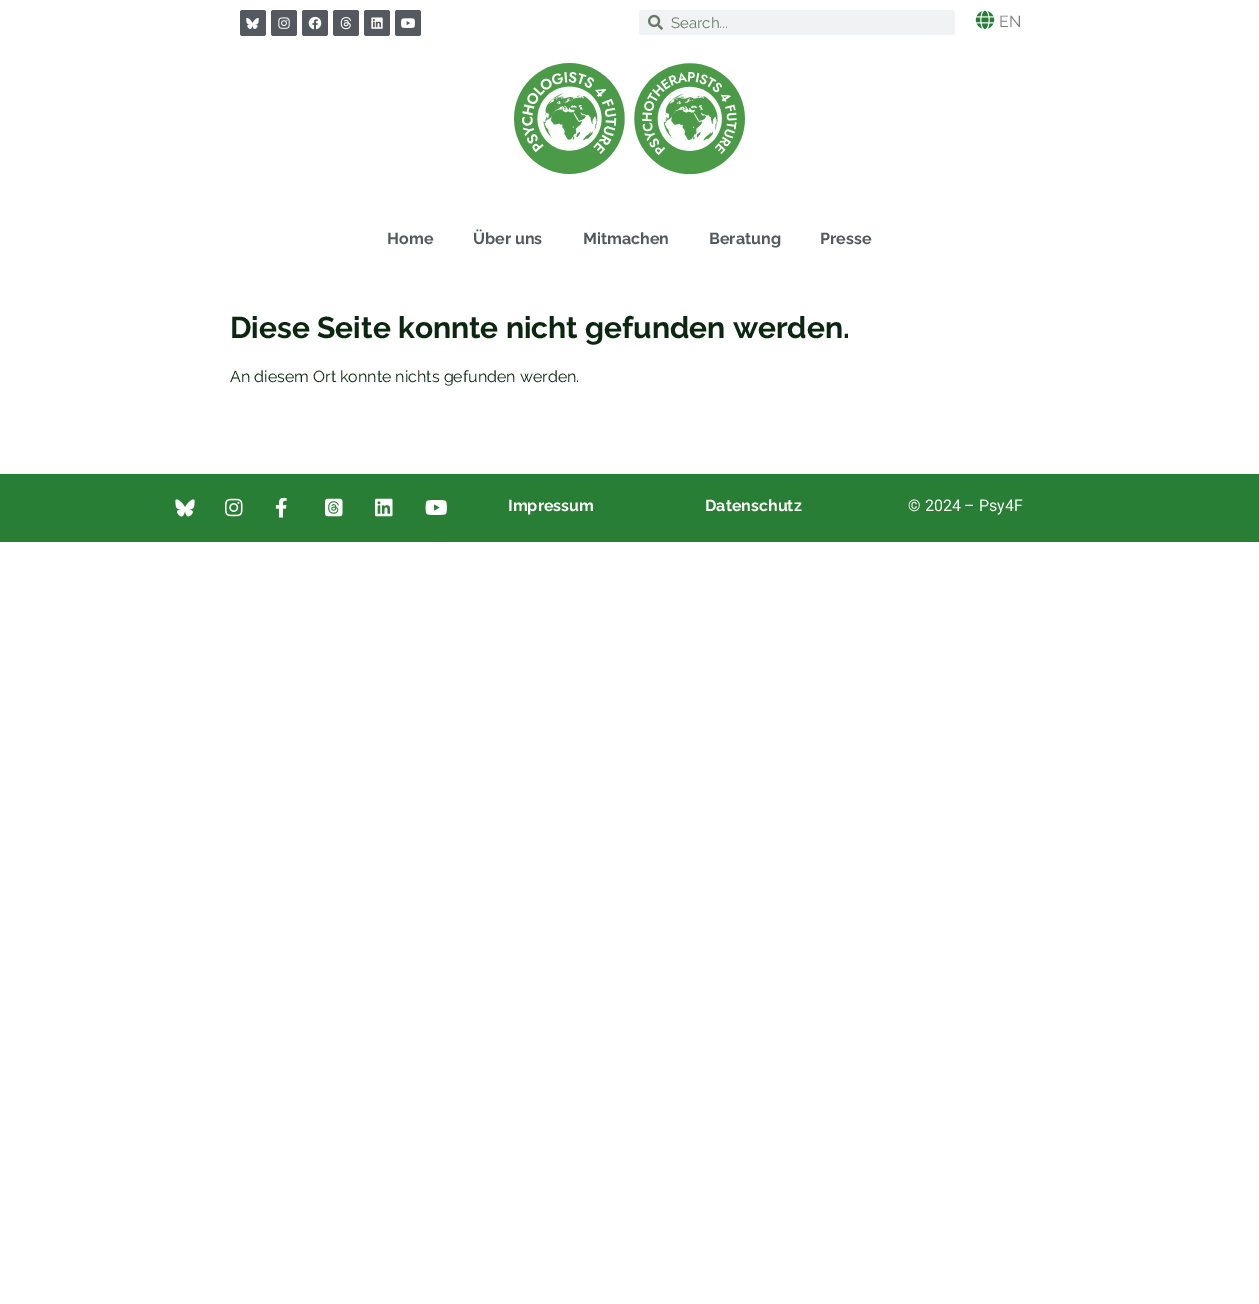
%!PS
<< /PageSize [1259 1304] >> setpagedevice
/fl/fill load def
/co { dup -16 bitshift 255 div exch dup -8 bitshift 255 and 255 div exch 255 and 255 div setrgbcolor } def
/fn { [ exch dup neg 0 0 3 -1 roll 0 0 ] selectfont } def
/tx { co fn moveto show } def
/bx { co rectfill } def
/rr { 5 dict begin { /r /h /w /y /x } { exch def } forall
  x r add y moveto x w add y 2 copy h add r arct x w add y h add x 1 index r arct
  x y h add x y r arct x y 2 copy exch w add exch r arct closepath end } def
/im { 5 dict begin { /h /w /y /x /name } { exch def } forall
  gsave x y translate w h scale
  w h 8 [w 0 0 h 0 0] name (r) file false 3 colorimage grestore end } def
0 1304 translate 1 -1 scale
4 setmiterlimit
0 0 1259 1304 16#FFFFFF bx
16#54595F co
240 10 26 26 2.5 rr fl
(media/1.raw) 246 17 13 12 im
271 10 26 26 2.5 rr fl
(media/2.raw) 278 17 12 12 im
302 10 26 26 2.5 rr fl
(media/3.raw) 308 16 14 14 im
333 10 26 26 2.5 rr fl
(media/4.raw) 340 17 12 13 im
364 10 26 26 2.5 rr fl
(media/5.raw) 371 17 12 12 im
395 10 26 26 2.5 rr fl
(media/6.raw) 401 18 14 10 im
16#F1F2F3 co
639 10 316 25 3 rr fl
(media/7.raw) 648 14 15 16 im
(media/8.raw) 975 10 20 19 im
(media/9.raw) 514 63 231 111 im
0 474 1259 68 16#287E34 bx
(media/10.raw) 175 499 20 18 im
(media/11.raw) 225 498 18 19 im
(media/12.raw) 275 498 12 20 im
(media/13.raw) 325 498 18 19 im
(media/14.raw) 375 498 18 19 im
(media/15.raw) 425 500 22 15 im
(Search...) 671 28 /Raleway-Regular 15 16#68786B tx
(EN) 999 27 /Raleway-Regular 16 16#7A7A7A tx
(Home) 387 244 /Raleway-Bold 16 16#54595F tx
(Über uns) 473 244 /Raleway-Bold 16 16#54595F tx
(Mitmachen) 583 244 /Raleway-Bold 16 16#54595F tx
(Beratung) 709 244 /Raleway-Bold 16 16#54595F tx
(Presse) 820 244 /Raleway-Bold 16 16#54595F tx
(Diese Seite konnte nicht gefunden werden.) 230 338 /Raleway-Bold 30 16#0C2710 tx
(An diesem Ort konnte nichts gefunden werden.) 230 382 /Raleway-Regular 16 16#0C2710 tx
(Impressum) 508 511 /Raleway-Bold 16 16#FFFFFF tx
(Datenschutz) 705 511 /Raleway-Bold 16 16#FFFFFF tx
(© 2024 – Psy4F) 908 511 /Roboto-Regular 16 16#FFFFFF tx
showpage
